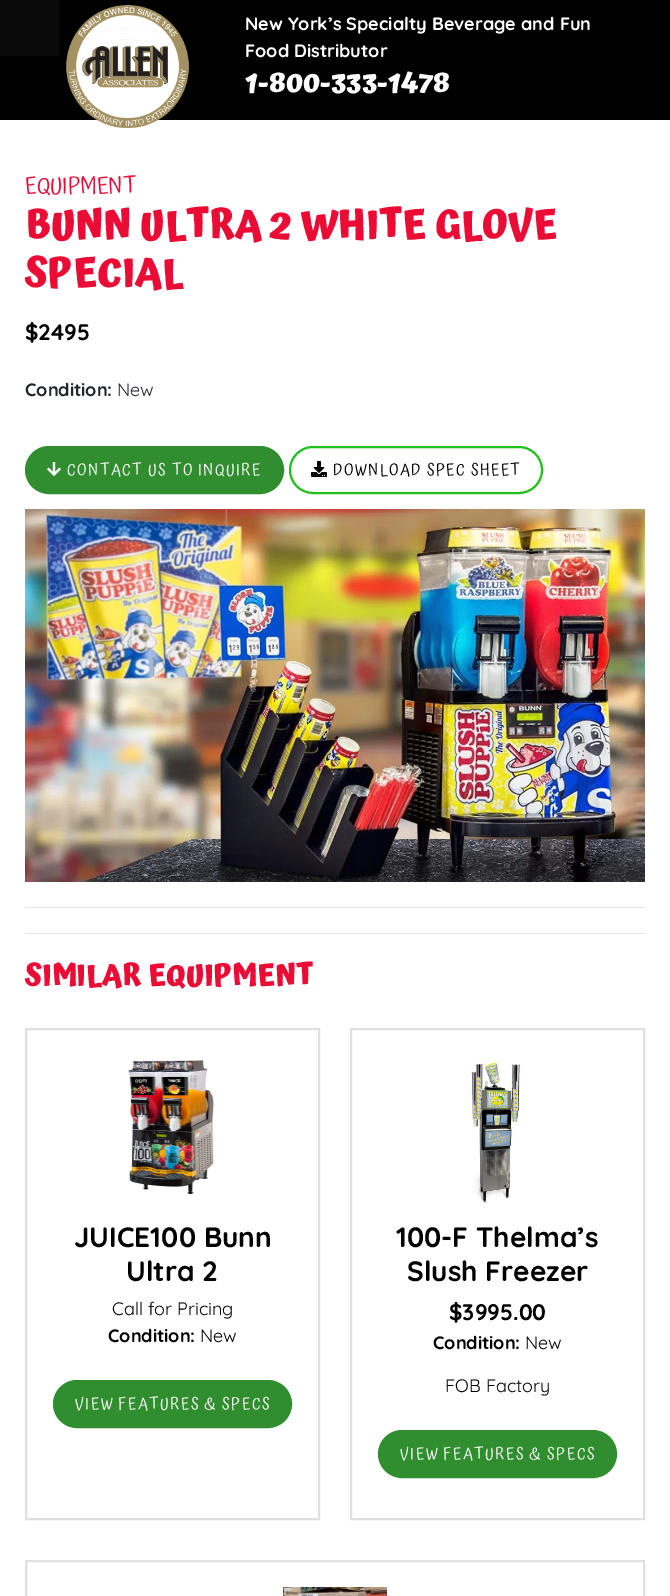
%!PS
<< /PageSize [670 1596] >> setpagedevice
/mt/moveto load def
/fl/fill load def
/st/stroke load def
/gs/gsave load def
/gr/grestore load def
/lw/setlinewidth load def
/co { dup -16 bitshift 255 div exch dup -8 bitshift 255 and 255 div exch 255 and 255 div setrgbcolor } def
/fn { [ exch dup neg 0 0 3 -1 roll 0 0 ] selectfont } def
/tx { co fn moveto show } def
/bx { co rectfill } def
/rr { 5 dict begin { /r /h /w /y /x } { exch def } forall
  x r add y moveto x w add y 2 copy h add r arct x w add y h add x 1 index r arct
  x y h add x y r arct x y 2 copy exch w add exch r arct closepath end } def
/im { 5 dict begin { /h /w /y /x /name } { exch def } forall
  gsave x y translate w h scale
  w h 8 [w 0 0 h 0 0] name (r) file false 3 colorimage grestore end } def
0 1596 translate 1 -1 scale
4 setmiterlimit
0 0 670 1596 16#FFFFFF bx
0 0 670 120 16#000000 bx
0 0 59 56 16#0A0A0A bx
(media/1.raw) 66 5 124 124 im
16#308E2F co
26 447 257 46 23 rr gs fl gr
2 lw
st
(media/2.raw) 47 462 14 14 im
16#1FC11D co
290 447 252 46 23 rr st
(media/3.raw) 311 461 16 16 im
(media/4.raw) 25 509 620 373 im
25 907 620 1 16#E6E6E6 bx
25 933 620 1 16#E6E6E6 bx
16#E0E0E0 co
26 1029 293 490 rectstroke
(media/5.raw) 128 1060 87 135 im
16#308E2F co
54 1381 237 46 23 rr gs fl gr
st
16#E0E0E0 co
351 1029 293 490 rectstroke
(media/6.raw) 471 1059 50 144 im
16#308E2F co
379 1431 237 46 23 rr gs fl gr
st
16#E0E0E0 co
26 1561 618 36 rectstroke
(media/7.raw) 283 1587 104 9 im
(New York’s Specialty Beverage and Fun) 245 30 /Quicksand-Bold 18 16#FFFFFF tx
(Food Distributor) 245 57 /Quicksand-Bold 18 16#FFFFFF tx
(1-800-333-1478) 245 92 /Atma-Bold 27 16#FFFFFF tx
(EQUIPMENT) 25 193 /Atma-Regular 22.5 16#EA0C35 tx
(BUNN ULTRA 2 WHITE GLOVE) 25 238 /Atma-Bold 40 16#EA0C35 tx
(SPECIAL) 25 286 /Atma-Bold 40 16#EA0C35 tx
($2495) 25 340 /Quicksand-Bold 22.5 16#000000 tx
(Condition:) 25 396 /Quicksand-Bold 18 16#212529 tx
(New) 117 396 /Quicksand-Regular 18 16#212529 tx
/Atma-Regular 16 fn
16#FFFFFF co
67 475 mt 1.5 0 (CONTACT US TO INQUIRE) ashow
16#000000 co
333 475 mt 1.5 0 (DOWNLOAD SPEC SHEET) ashow
(SIMILAR EQUIPMENT) 25 985 /Atma-Bold 29.75 16#EA0C35 tx
(JUICE100 Bunn) 74 1247 /Quicksand-Bold 28 16#000000 tx
(Ultra 2) 126 1281 /Quicksand-Bold 28 16#000000 tx
(Call for Pricing) 112 1315 /Quicksand-Regular 18 16#000000 tx
(Condition:) 108 1342 /Quicksand-Bold 18 16#000000 tx
(New) 200 1342 /Quicksand-Regular 18 16#000000 tx
/Atma-Regular 16 fn
16#FFFFFF co
75 1409 mt 1.5 0 (VIEW FEATURES & SPECS) ashow
(100-F Thelma’s) 396 1247 /Quicksand-Bold 28 16#000000 tx
(Slush Freezer) 407 1281 /Quicksand-Bold 28 16#000000 tx
($3995.00) 449 1320 /Quicksand-Bold 22.5 16#000000 tx
(Condition:) 433 1349 /Quicksand-Bold 18 16#000000 tx
(New) 525 1349 /Quicksand-Regular 18 16#000000 tx
(FOB Factory) 445 1392 /Quicksand-Regular 18 16#000000 tx
/Atma-Regular 16 fn
16#FFFFFF co
400 1459 mt 1.5 0 (VIEW FEATURES & SPECS) ashow
showpage
